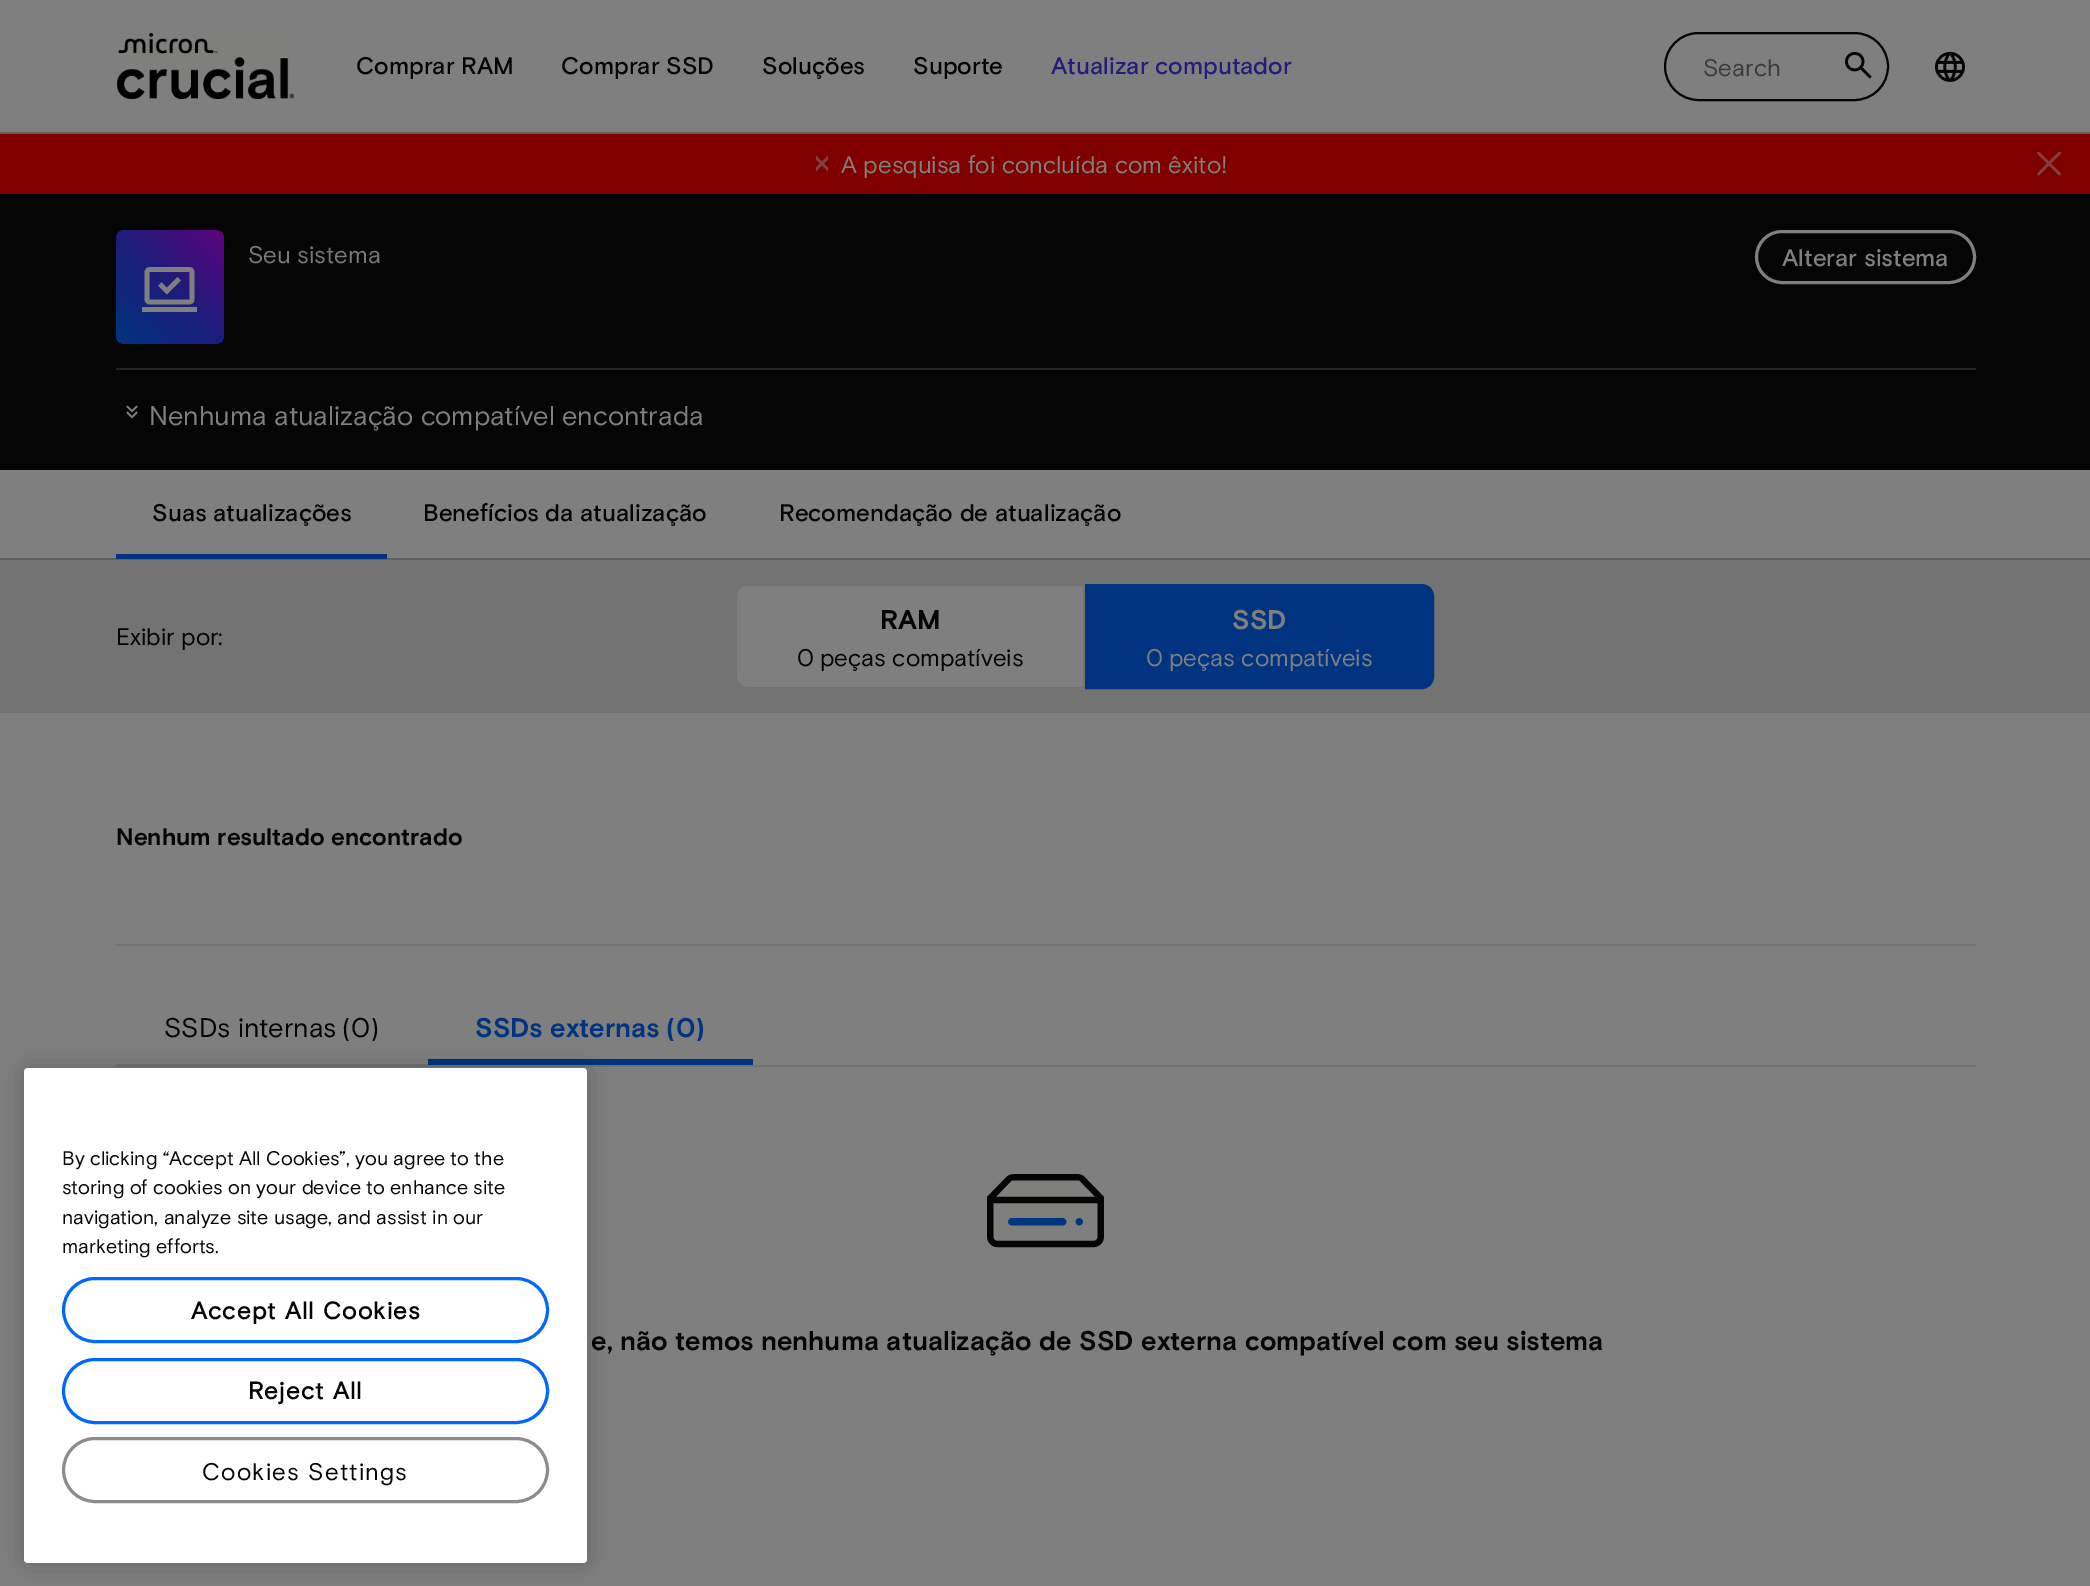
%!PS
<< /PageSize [2090 1586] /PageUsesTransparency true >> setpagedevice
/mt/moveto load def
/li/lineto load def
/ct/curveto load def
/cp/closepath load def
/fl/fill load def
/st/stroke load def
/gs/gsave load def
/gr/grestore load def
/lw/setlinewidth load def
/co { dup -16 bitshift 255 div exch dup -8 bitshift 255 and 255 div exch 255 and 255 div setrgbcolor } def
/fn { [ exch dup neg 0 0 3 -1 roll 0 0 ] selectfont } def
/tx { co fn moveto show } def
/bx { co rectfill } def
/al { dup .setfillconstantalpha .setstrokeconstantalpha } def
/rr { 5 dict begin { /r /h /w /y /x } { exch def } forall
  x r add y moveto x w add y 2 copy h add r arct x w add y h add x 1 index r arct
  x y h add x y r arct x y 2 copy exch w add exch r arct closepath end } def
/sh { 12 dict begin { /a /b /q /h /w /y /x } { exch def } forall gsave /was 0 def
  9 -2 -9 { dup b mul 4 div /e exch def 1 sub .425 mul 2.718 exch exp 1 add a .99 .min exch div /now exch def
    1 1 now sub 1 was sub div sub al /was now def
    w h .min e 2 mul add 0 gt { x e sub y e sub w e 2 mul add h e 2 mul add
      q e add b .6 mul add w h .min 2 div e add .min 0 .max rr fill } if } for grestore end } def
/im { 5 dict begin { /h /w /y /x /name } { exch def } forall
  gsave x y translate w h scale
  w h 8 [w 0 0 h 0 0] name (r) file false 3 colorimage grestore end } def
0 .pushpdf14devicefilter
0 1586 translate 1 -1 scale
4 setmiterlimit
0 0 2090 1586 16#7F7F7F bx
0 132 2090 2 16#606060 bx
(media/1.raw) 117 33 177 66 im
16#050505 co
2 lw
1665 33 223 67 33.5 rr st
(media/2.raw) 1845 51 27 28 im
(media/3.raw) 1935 51 30 31 im
0 134 2090 60 16#800000 bx
(media/4.raw) 816 155 12 17 im
(media/5.raw) 2037 152 24 24 im
0 194 2090 276 16#050505 bx
gs 116 230 108 114 9 rr clip newpath
<< /ShadingType 2 /ColorSpace /DeviceRGB /Coords [225 231 114 342] /Extend [true true] /Function << /FunctionType 3 /Domain [0 1] /Functions [<< /FunctionType 2 /Domain [0 1] /C0 [.373 .008 .486] /C1 [.106 .114 .478] /N 1 >> << /FunctionType 2 /Domain [0 1] /C0 [.106 .114 .478] /C1 [0 .204 .502] /N 1 >>] /Bounds [.51] /Encode [0 1 0 1] >> >> shfill gr
(media/6.raw) 142 267 55 45 im
16#7F7F7F co
3 lw
1756.5 231.5 218 51 25.5 rr st
116 368 1860 2 16#242424 bx
(media/7.raw) 126 405 12 14 im
0 558 2090 2 16#606060 bx
116 554 271 5 16#003480 bx
0 560 2090 153 16#737373 bx
16#7F7F7F co
747 585 mt 1084 585 li 1084 688 li 747 688 li 741 688 736 683 736 677 ct 736 596 li 736 590 741 585 747 585 ct cp gs fl gr
16#737373 co
2 lw
st
16#003480 co
1086 585 mt 1422 585 li 1428 585 1433 590 1433 596 ct 1433 677 li 1433 683 1428 688 1422 688 ct 1086 688 li cp gs fl gr
st
116 944 1860 2 16#737373 bx
(media/8.raw) 987 1174 117 74 im
116 1065 1860 2 16#737373 bx
116 1064 312 1 16#737373 bx
428 1059 325 6 16#003480 bx
16#000000 co
24 1068 563 495 4 13.5 .2 sh
16#FFFFFF co
24 1068 563 495 4 rr fl
16#0068FF co
3 lw
63.5 1278.5 484 63 31.5 rr st
63.5 1359.5 484 63 31.5 rr st
16#8C8C8C co
63.5 1438.5 484 63 31.5 rr st
(Comprar RAM) 356 74 /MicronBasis-Medium 24 16#050505 tx
(Comprar SSD) 561 74 /MicronBasis-Medium 24 16#050505 tx
(Soluções) 762 74 /MicronBasis-Medium 24 16#050505 tx
(Suporte) 913 74 /MicronBasis-Medium 24 16#050505 tx
(Atualizar computador) 1051 74 /MicronBasis-Medium 24 16#261C7C tx
(Search) 1703 76 /MicronBasis-Regular 24 16#3B3B3B tx
(A pesquisa foi concluída com êxito!) 841 173 /MicronBasis-Regular 24 16#7F7F7F tx
(Seu sistema) 248 263 /MicronBasis-Regular 24 16#797979 tx
(Alterar sistema) 1782 266 /MicronBasis-Medium 24 16#7F7F7F tx
(Nenhuma atualização compatível encontrada) 149 425 /MicronBasis-Regular 27 16#7F7F7F tx
(Suas atualizações) 152 521 /MicronBasis-Medium 24 16#050505 tx
(Benefícios da atualização) 423 521 /MicronBasis-Medium 24 16#050505 tx
(Recomendação de atualização) 779 521 /MicronBasis-Medium 24 16#050505 tx
(Exibir por:) 116 645 /MicronBasis-Regular 24 16#050505 tx
(RAM) 880 629 /MicronBasis-Bold 27 16#050505 tx
(0) 797 666 /MicronBasis-Regular 24 16#050505 tx
(peças compatíveis) 820 666 /MicronBasis-Regular 24 16#050505 tx
(SSD) 1232 629 /MicronBasis-Bold 27 16#7F7F7F tx
(0) 1146 666 /MicronBasis-Regular 24 16#7F7F7F tx
(peças compatíveis) 1169 666 /MicronBasis-Regular 24 16#7F7F7F tx
(Nenhum resultado encontrado) 116 845 /MicronBasis-Bold 24 16#050505 tx
(e, não temos nenhuma atualização de SSD externa compatível com seu sistema) 591 1350 /MicronBasis-Bold 27 16#050505 tx
(SSDs internas) 164 1037 /MicronBasis-Regular 27 16#050505 tx
(\(0\)) 342 1037 /MicronBasis-Regular 27 16#050505 tx
(SSDs externas) 475 1037 /MicronBasis-Bold 27 16#003480 tx
(\(0\)) 666 1037 /MicronBasis-Bold 27 16#003480 tx
(By clicking “Accept All Cookies”, you agree to the) 62 1165 /MicronBasis-Regular 19.7 16#050505 tx
(storing of cookies on your device to enhance site) 62 1194 /MicronBasis-Regular 19.7 16#050505 tx
(navigation, analyze site usage, and assist in our) 62 1224 /MicronBasis-Regular 19.7 16#050505 tx
(marketing efforts.) 62 1253 /MicronBasis-Regular 19.7 16#050505 tx
/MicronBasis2-Bold 24 fn
191 1319 mt 1.25 0 (Accept All Cookies) ashow
248 1399 mt 1.25 0 (Reject All) ashow
/MicronBasis-Regular 24 fn
202 1480 mt 1.25 0 (Cookies Settings) ashow
.poppdf14devicefilter showpage
